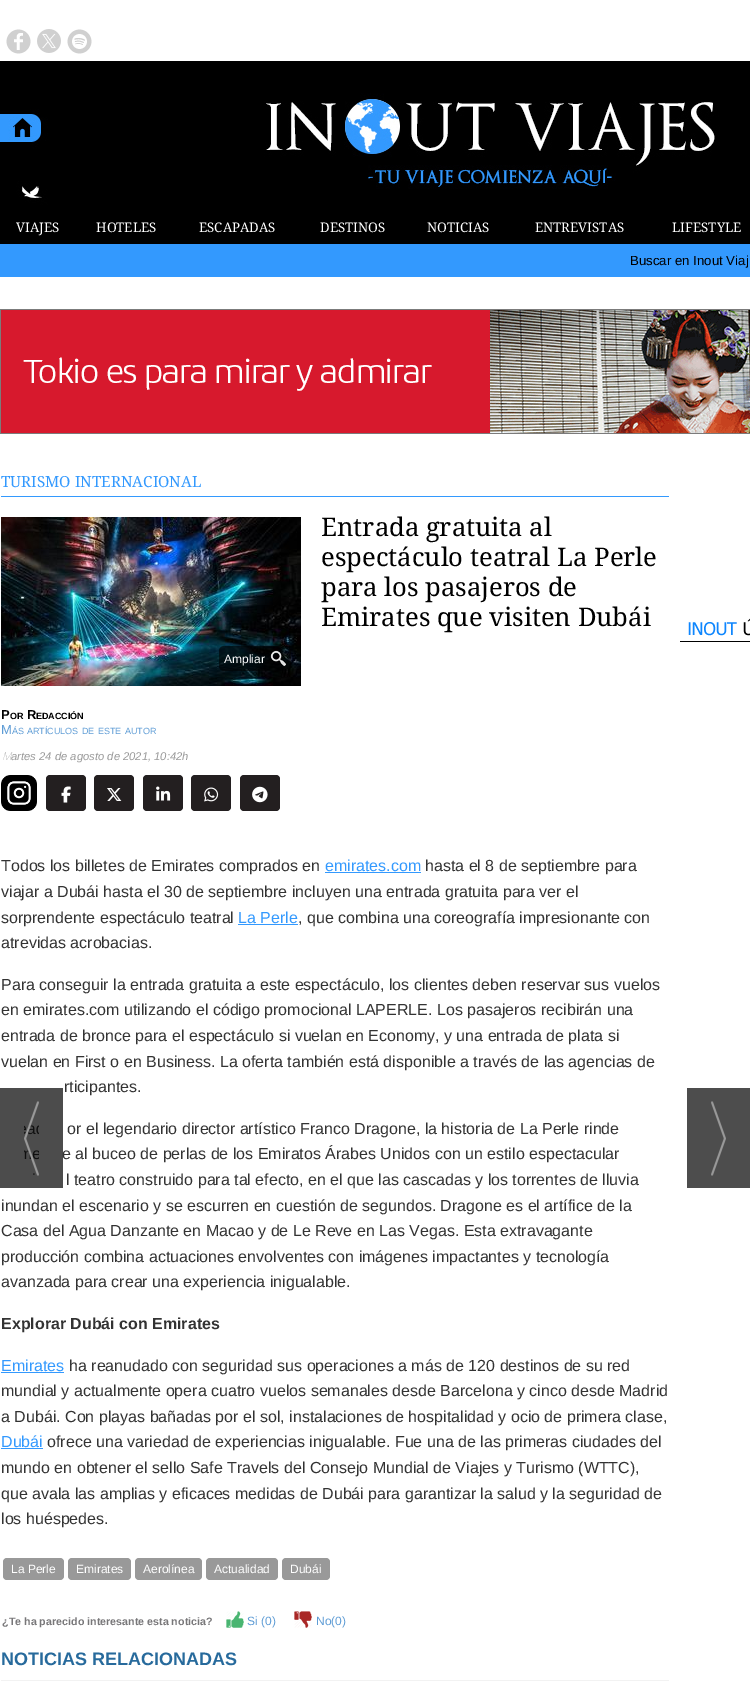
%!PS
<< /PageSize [750 1697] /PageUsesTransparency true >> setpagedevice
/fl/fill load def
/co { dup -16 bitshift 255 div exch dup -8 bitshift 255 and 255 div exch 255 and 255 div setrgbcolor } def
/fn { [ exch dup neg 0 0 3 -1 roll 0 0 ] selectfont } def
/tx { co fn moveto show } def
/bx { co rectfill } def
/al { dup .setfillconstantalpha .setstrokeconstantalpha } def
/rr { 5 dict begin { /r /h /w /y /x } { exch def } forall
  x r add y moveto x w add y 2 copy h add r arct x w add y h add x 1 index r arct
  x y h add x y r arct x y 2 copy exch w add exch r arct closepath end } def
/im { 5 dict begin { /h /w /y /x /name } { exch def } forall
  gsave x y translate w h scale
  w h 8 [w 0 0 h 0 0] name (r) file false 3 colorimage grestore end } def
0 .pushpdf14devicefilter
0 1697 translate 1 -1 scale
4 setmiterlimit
0 0 750 1697 16#FFFFFF bx
(media/1.raw) 6 29 25 25 im
(media/2.raw) 37 29 24 24 im
(media/3.raw) 67 29 25 25 im
(media/4.raw) 0 61 750 150 im
0 211 750 33 16#000000 bx
0 244 750 33 16#3399FE bx
(media/5.raw) 0 309 750 125 im
1 496 668 1 16#3399FE bx
(media/6.raw) 1 517 300 169 im
0.58 al
16#000000 co
219 646 72 25 5 rr fl
1 al
(media/7.raw) 270 650 16 16 im
(media/8.raw) 1 775 36 36 im
16#231F20 co
46 775 40 36 4 rr fl
(media/9.raw) 61 786 10 17 im
94 775 40 36 4 rr fl
(media/10.raw) 107 788 15 13 im
143 775 40 36 4 rr fl
(media/11.raw) 156 786 15 15 im
191 775 40 36 4 rr fl
(media/12.raw) 204 787 15 15 im
240 775 40 36 4 rr fl
(media/13.raw) 252 786 16 17 im
325 872 96 1 16#3399FE bx
238 924 60 1 16#3399FE bx
1 1372 63 1 16#3399FE bx
1 1448 42 1 16#3399FE bx
16#999999 co
3 1558 61 22 4 rr fl
68 1558 63 22 4 rr fl
135 1558 67 22 4 rr fl
206 1558 72 22 4 rr fl
282 1558 48 22 4 rr fl
(media/14.raw) 226 1611 18 17 im
(media/15.raw) 294 1611 18 17 im
1 1680 668 1 16#F2F2F2 bx
(media/16.raw) 680 618 70 24 im
0.7 al
0 1088 63 100 16#000000 bx
1 al
(media/17.raw) 24 1101 15 75 im
687 1088 63 100 16#4D4D4D bx
(media/18.raw) 711 1101 15 75 im
(VIAJES) 16 232 /DroidSerif-Regular 13.25 16#FFFFFF tx
(HOTELES) 96 232 /DroidSerif-Regular 13.25 16#FFFFFF tx
(ESCAPADAS) 199 232 /DroidSerif-Regular 13.25 16#FFFFFF tx
(DESTINOS) 320 232 /DroidSerif-Regular 13.25 16#FFFFFF tx
(NOTICIAS) 427 232 /DroidSerif-Regular 13.25 16#FFFFFF tx
(ENTREVISTAS) 535 232 /DroidSerif-Regular 13.25 16#FFFFFF tx
(LIFESTYLE) 672 232 /DroidSerif-Regular 13.25 16#FFFFFF tx
(Buscar en Inout Viaj) 630 265 /LiberationSans-Regular 13.25 16#000000 tx
(TURISMO INTERNACIONAL) 1 487 /DroidSerif-Regular 15.25 16#3399FE tx
(Entrada gratuita al) 321 536 /DroidSerif-Regular 25.6 16#000000 tx
(espectáculo teatral La Perle) 321 566 /DroidSerif-Regular 25.6 16#000000 tx
(para los pasajeros de) 321 596 /DroidSerif-Regular 25.6 16#000000 tx
(Emirates que visiten Dubái) 321 626 /DroidSerif-Regular 25.6 16#000000 tx
(Ampliar) 224 663 /LiberationSans-Regular 12 16#FFFFFF tx
(P) 1 719 /LiberationSans-Bold 13 16#000000 tx
(OR) 10 719 /LiberationSans-Bold 9 16#000000 tx
(R) 27 719 /LiberationSans-Bold 13 16#000000 tx
(EDACCIÓN) 36 719 /LiberationSans-Bold 9 16#000000 tx
(M) 1 734 /LiberationSans-Regular 13 16#5E9CD5 tx
(ÁS) 12 734 /LiberationSans-Regular 9 16#5E9CD5 tx
(ARTÍCULOS) 27 734 /LiberationSans-Regular 9 16#5E9CD5 tx
(DE) 82 734 /LiberationSans-Regular 9 16#5E9CD5 tx
(ESTE) 98 734 /LiberationSans-Regular 9 16#5E9CD5 tx
(AUTOR) 125 734 /LiberationSans-Regular 9 16#5E9CD5 tx
(M) 2 760 /NotoSans-ThinItalic 11.25 16#999999 tx
(artes 24 de agosto de 2021, 10:42h) 11 760 /LiberationSans-Italic 11.25 16#999999 tx
(Todos los billetes de Emirates comprados en) 1 871 /LiberationSans-Regular 16 16#333333 tx
(emirates.com) 325 871 /LiberationSans-Regular 16 16#3399FE tx
(hasta el 8 de septiembre para) 425 871 /LiberationSans-Regular 16 16#333333 tx
(viajar a Dubái hasta el 30 de septiembre incluyen una entrada gratuita para ver el) 1 897 /LiberationSans-Regular 16 16#333333 tx
(sorprendente espectáculo teatral) 1 923 /LiberationSans-Regular 16 16#333333 tx
(La Perle) 238 923 /LiberationSans-Regular 16 16#3399FE tx
(, que combina una coreografía impresionante con) 298 923 /LiberationSans-Regular 16 16#333333 tx
(atrevidas acrobacias.) 1 948 /LiberationSans-Regular 16 16#333333 tx
(Para conseguir la entrada gratuita a este espectáculo, los clientes deben reservar sus vuelos) 1 990 /LiberationSans-Regular 16 16#333333 tx
(en emirates.com utilizando el código promocional LAPERLE. Los pasajeros recibirán una) 1 1015 /LiberationSans-Regular 16 16#333333 tx
(entrada de bronce para el espectáculo si vuelan en Economy, y una entrada de plata si) 1 1041 /LiberationSans-Regular 16 16#333333 tx
(vuelan en First o en Business. La oferta también está disponible a través de las agencias de) 1 1067 /LiberationSans-Regular 16 16#333333 tx
(rticipantes.) 64 1092 /LiberationSans-Regular 16 16#333333 tx
(or el legendario director artístico Franco Dragone, la historia de La Perle rinde) 67 1134 /LiberationSans-Regular 16 16#333333 tx
(e al buceo de perlas de los Emiratos Árabes Unidos con un estilo espectacular) 62 1159 /LiberationSans-Regular 16 16#333333 tx
(l teatro construido para tal efecto, en el que las cascadas y los torrentes de lluvia) 66 1185 /LiberationSans-Regular 16 16#333333 tx
(inundan el escenario y se escurren en cuestión de segundos. Dragone es el artífice de la) 1 1211 /LiberationSans-Regular 16 16#333333 tx
(Casa del Agua Danzante en Macao y de Le Reve en Las Vegas. Esta extravagante) 1 1236 /LiberationSans-Regular 16 16#333333 tx
(producción combina actuaciones envolventes con imágenes impactantes y tecnología) 1 1262 /LiberationSans-Regular 16 16#333333 tx
(avanzada para crear una experiencia inigualable.) 1 1287 /LiberationSans-Regular 16 16#333333 tx
(Explorar Dubái con Emirates) 1 1329 /LiberationSans-Bold 16 16#333333 tx
(Emirates) 1 1371 /LiberationSans-Regular 16 16#3399FE tx
(ha reanudado con seguridad sus operaciones a más de 120 destinos de su red) 69 1371 /LiberationSans-Regular 16 16#333333 tx
(mundial y actualmente opera cuatro vuelos semanales desde Barcelona y cinco desde Madrid) 1 1396 /LiberationSans-Regular 16 16#333333 tx
(a Dubái. Con playas bañadas por el sol, instalaciones de hospitalidad y ocio de primera clase,) 1 1422 /LiberationSans-Regular 16 16#333333 tx
(Dubái) 1 1447 /LiberationSans-Regular 16 16#3399FE tx
(ofrece una variedad de experiencias inigualable. Fue una de las primeras ciudades del) 47 1447 /LiberationSans-Regular 16 16#333333 tx
(mundo en obtener el sello Safe Travels del Consejo Mundial de Viajes y Turismo \(WTTC\),) 1 1473 /LiberationSans-Regular 16 16#333333 tx
(que avala las amplias y eficaces medidas de Dubái para garantizar la salud y la seguridad de) 1 1499 /LiberationSans-Regular 16 16#333333 tx
(los huéspedes.) 1 1524 /LiberationSans-Regular 16 16#333333 tx
(La Perle) 11 1573 /LiberationSans-Regular 12 16#FFFFFF tx
(Emirates) 76 1573 /LiberationSans-Regular 12 16#FFFFFF tx
(Aerolínea) 143 1573 /LiberationSans-Regular 12 16#FFFFFF tx
(Actualidad) 214 1573 /LiberationSans-Regular 12 16#FFFFFF tx
(Dubái) 290 1573 /LiberationSans-Regular 12 16#FFFFFF tx
(¿Te ha parecido interesante esta noticia?) 2 1625 /LiberationSans-Bold 10.7 16#787779 tx
(Si \(0\)) 247 1625 /LiberationSans-Regular 12 16#5E9CD5 tx
(No\(0\)) 316 1625 /LiberationSans-Regular 12 16#5E9CD5 tx
(NOTICIAS RELACIONADAS) 1 1665 /LiberationSans-Bold 18 16#276A9C tx
.poppdf14devicefilter showpage
